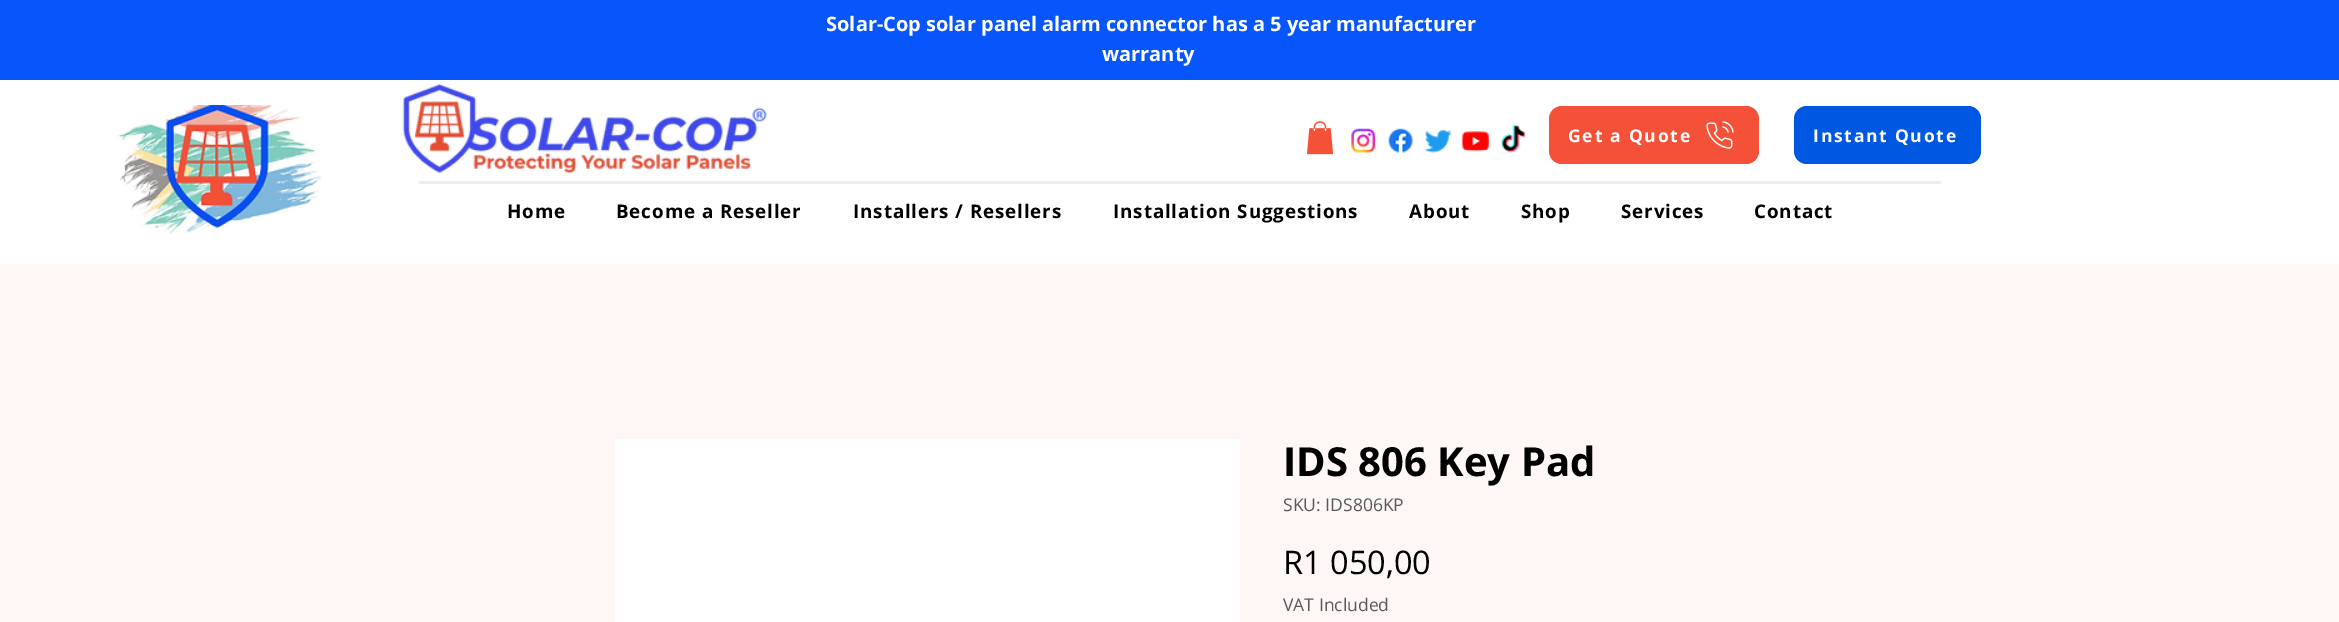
%!PS
<< /PageSize [2339 622] >> setpagedevice
/mt/moveto load def
/fl/fill load def
/co { dup -16 bitshift 255 div exch dup -8 bitshift 255 and 255 div exch 255 and 255 div setrgbcolor } def
/fn { [ exch dup neg 0 0 3 -1 roll 0 0 ] selectfont } def
/tx { co fn moveto show } def
/bx { co rectfill } def
/rr { 5 dict begin { /r /h /w /y /x } { exch def } forall
  x r add y moveto x w add y 2 copy h add r arct x w add y h add x 1 index r arct
  x y h add x y r arct x y 2 copy exch w add exch r arct closepath end } def
/im { 5 dict begin { /h /w /y /x /name } { exch def } forall
  gsave x y translate w h scale
  w h 8 [w 0 0 h 0 0] name (r) file false 3 colorimage grestore end } def
0 622 translate 1 -1 scale
4 setmiterlimit
0 0 2339 622 16#FFFFFF bx
0 0 2339 80 16#0656FC bx
(media/1.raw) 116 105 206 129 im
(media/2.raw) 402 83 365 90 im
(media/3.raw) 1306 121 28 34 im
(media/4.raw) 1351 128 25 25 im
(media/5.raw) 1388 128 25 25 im
(media/6.raw) 1425 129 27 24 im
(media/7.raw) 1461 131 29 21 im
(media/8.raw) 1501 125 25 28 im
16#F55139 co
1549 106 210 58 13 rr fl
(media/9.raw) 1706 121 28 28 im
16#0057E1 co
1794 106 187 58 13 rr fl
419 181 1522 3 16#EEEEEE bx
0 264 2339 358 16#FFF7F6 bx
615 439 625 183 16#FFFFFF bx
(Solar-Cop solar panel alarm connector has a 5 year manufacturer) 826 31 /OpenSans-Bold 20 16#FFFFFF tx
(warranty) 1102 61 /OpenSans-Bold 20 16#FFFFFF tx
/OpenSans-Bold 17.5 fn
1568 142 mt 1.75 0 (Get a Quote) ashow
1813 142 mt 1.75 0 (Instant Quote) ashow
/OpenSans-Bold 18.75 fn
16#000000 co
507 218 mt .9 0 (Home) ashow
616 218 mt .9 0 (Become a Reseller) ashow
853 218 mt .9 0 (Installers / Resellers) ashow
1113 218 mt .9 0 (Installation Suggestions) ashow
1409 218 mt .9 0 (About) ashow
1521 218 mt .9 0 (Shop) ashow
1621 218 mt .9 0 (Services) ashow
1754 218 mt .9 0 (Contact) ashow
(IDS 806 Key Pad) 1283 476 /OpenSans-Bold 40 16#000000 tx
(SKU: IDS806KP) 1283 511 /OpenSans-Regular 17.5 16#595959 tx
(R1 050,00) 1283 574 /OpenSans-Regular 32.5 16#000000 tx
(VAT Included) 1283 611 /OpenSans-Regular 17.5 16#595959 tx
showpage
